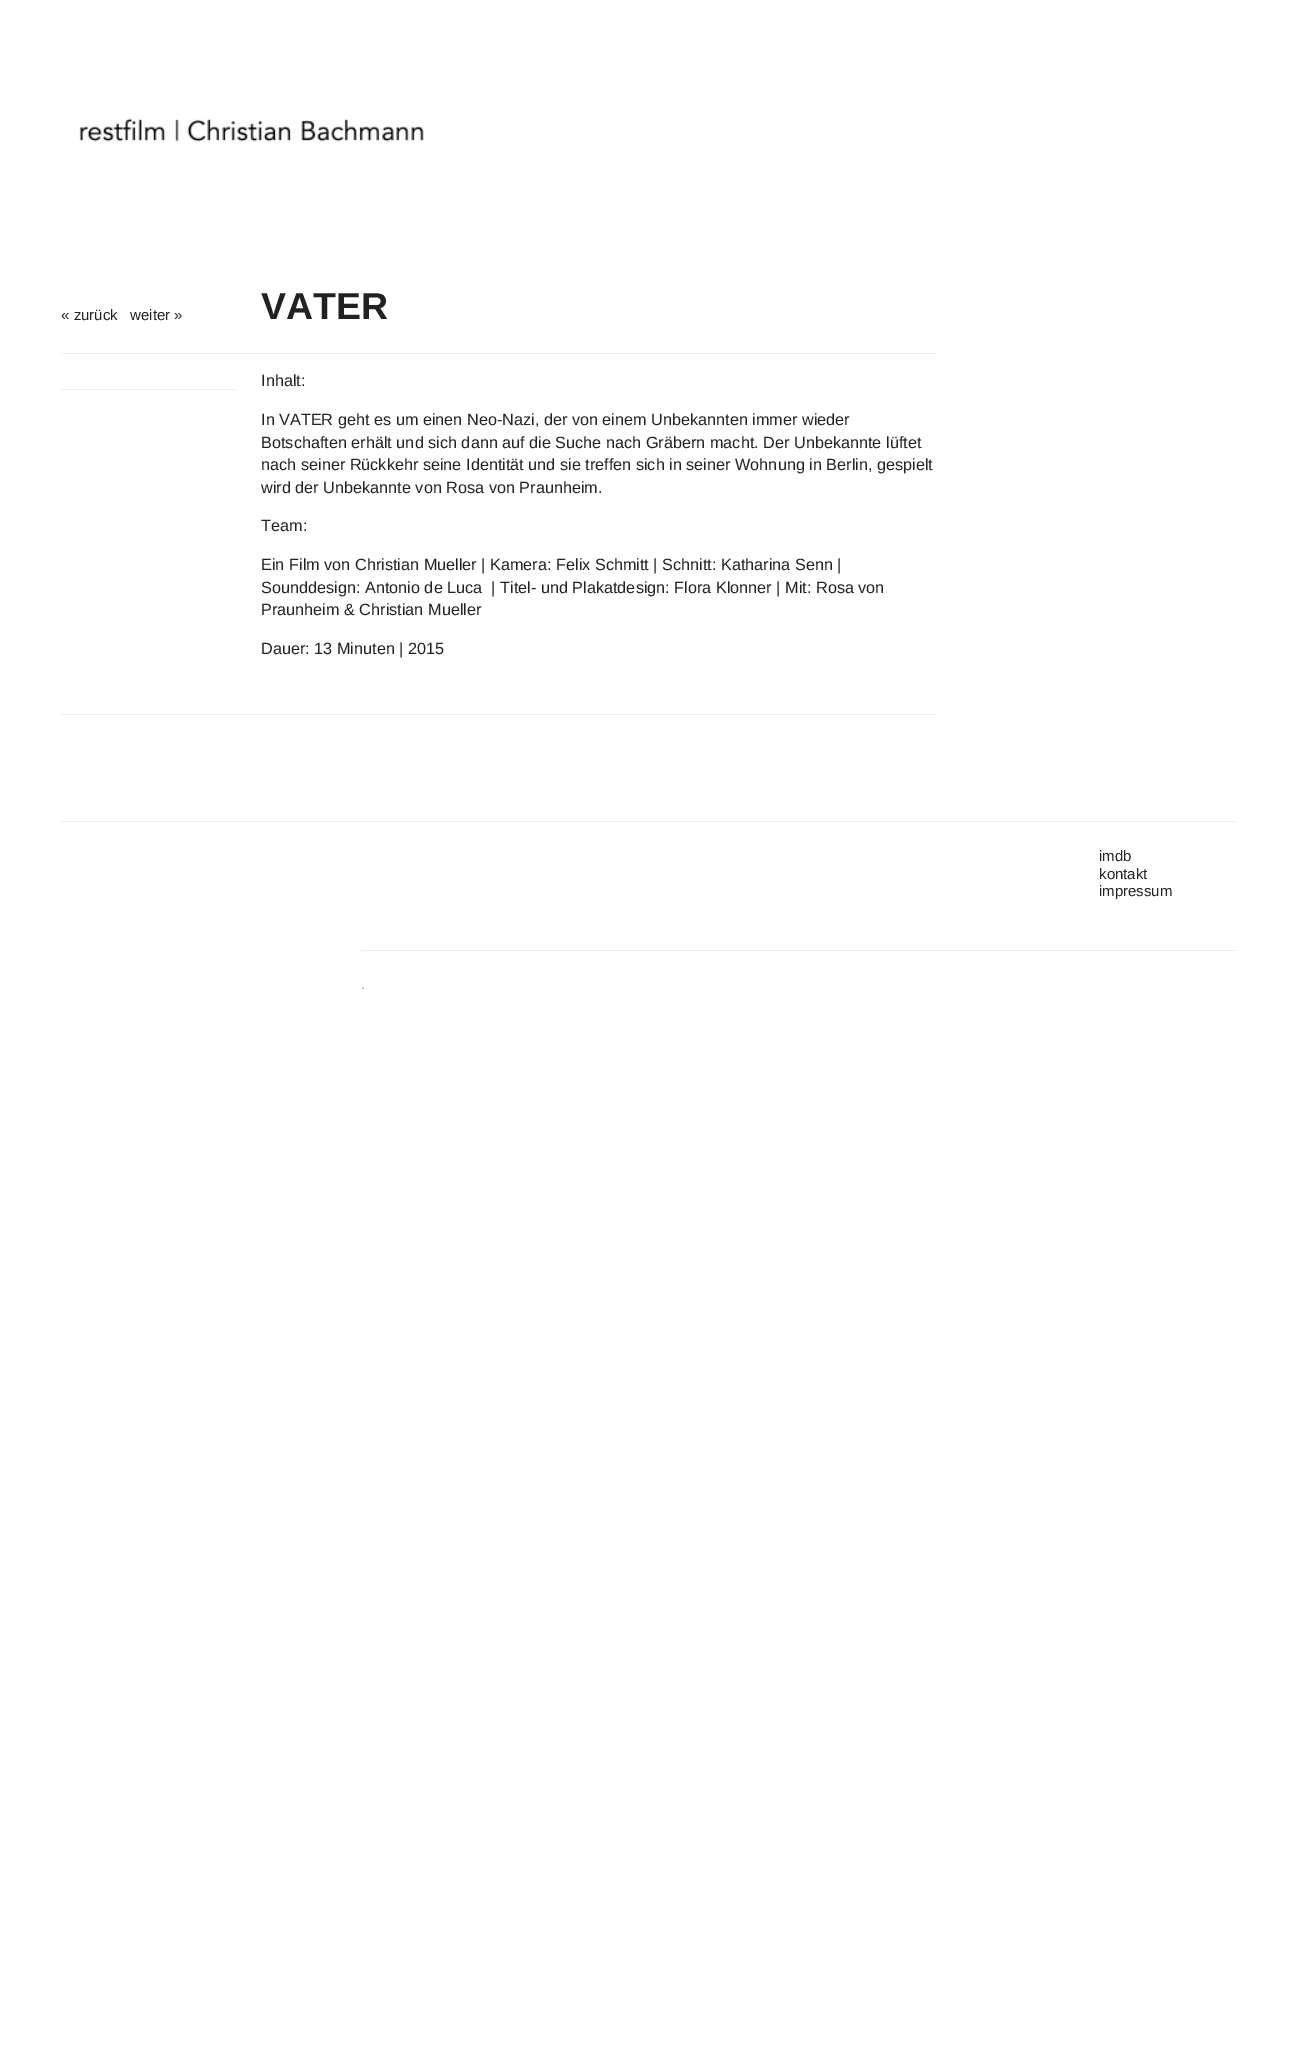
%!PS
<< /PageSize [1297 2056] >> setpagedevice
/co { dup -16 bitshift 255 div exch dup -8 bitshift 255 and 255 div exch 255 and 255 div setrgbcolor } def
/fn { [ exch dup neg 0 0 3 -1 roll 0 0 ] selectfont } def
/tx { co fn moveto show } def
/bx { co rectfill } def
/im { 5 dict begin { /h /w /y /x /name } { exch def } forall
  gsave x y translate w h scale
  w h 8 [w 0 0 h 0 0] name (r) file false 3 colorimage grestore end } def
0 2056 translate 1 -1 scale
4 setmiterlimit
0 0 1297 2056 16#FFFFFF bx
(media/1.raw) 79 118 345 24 im
61 353 875 1 16#EEEEEE bx
61 389 175 1 16#EEEEEE bx
61 714 875 1 16#EEEEEE bx
61 821 1175 1 16#EEEEEE bx
361 950 875 1 16#EEEEEE bx
(« zurück) 61 320 /LiberationSans-Regular 15 16#222222 tx
(weiter ») 130 320 /LiberationSans-Regular 15 16#222222 tx
(VATER) 261 319 /LiberationSans-Bold 37.5 16#222222 tx
(Inhalt:) 261 386 /LiberationSans-Regular 16.25 16#222222 tx
(In VATER geht es um einen Neo-Nazi, der von einem Unbekannten immer wieder) 261 425 /LiberationSans-Regular 16.25 16#222222 tx
(Botschaften erhält und sich dann auf die Suche nach Gräbern macht. Der Unbekannte lüftet) 261 448 /LiberationSans-Regular 16.25 16#222222 tx
(nach seiner Rückkehr seine Identität und sie treffen sich in seiner Wohnung in Berlin, gespielt) 261 470 /LiberationSans-Regular 16.25 16#222222 tx
(wird der Unbekannte von Rosa von Praunheim.) 261 493 /LiberationSans-Regular 16.25 16#222222 tx
(Team:) 261 531 /LiberationSans-Regular 16.25 16#222222 tx
(Ein Film von Christian Mueller | Kamera: Felix Schmitt | Schnitt: Katharina Senn |) 261 570 /LiberationSans-Regular 16.25 16#222222 tx
(Sounddesign: Antonio de Luca  | Titel- und Plakatdesign: Flora Klonner | Mit: Rosa von) 261 593 /LiberationSans-Regular 16.25 16#222222 tx
(Praunheim & Christian Mueller) 261 615 /LiberationSans-Regular 16.25 16#222222 tx
(Dauer: 13 Minuten | 2015) 261 654 /LiberationSans-Regular 16.25 16#222222 tx
(imdb) 1099 861 /LiberationSans-Regular 15 16#222222 tx
(kontakt) 1099 879 /LiberationSans-Regular 15 16#222222 tx
(impressum) 1099 896 /LiberationSans-Regular 15 16#222222 tx
(.) 361 989 /LiberationSans-Regular 15 16#999999 tx
showpage
